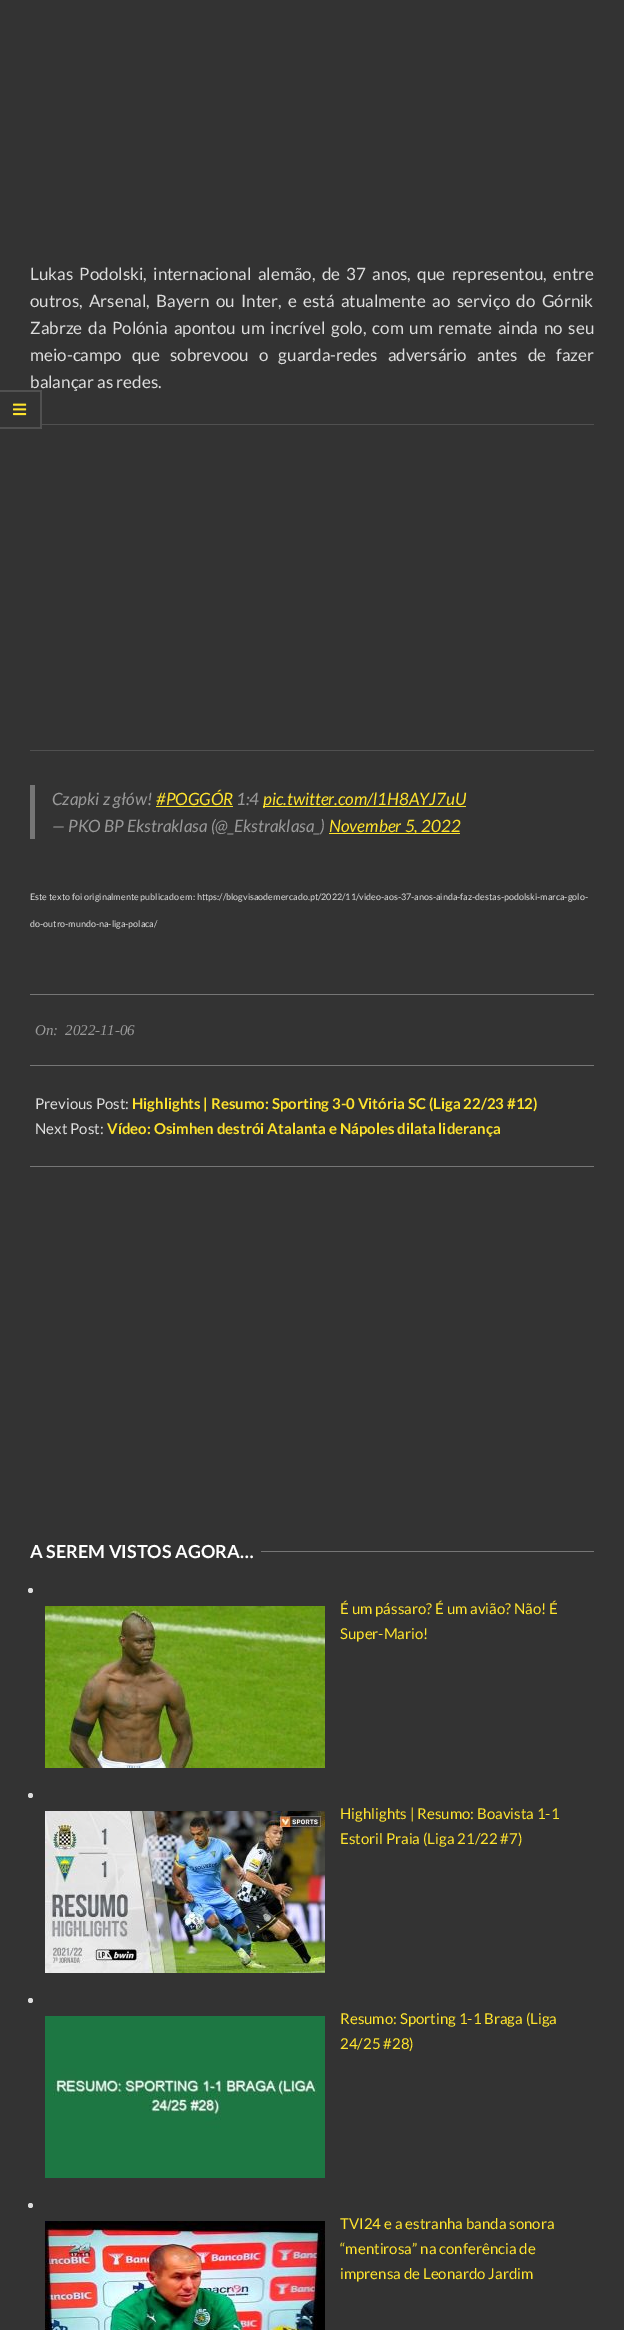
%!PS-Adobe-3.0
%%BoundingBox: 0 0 624 2330
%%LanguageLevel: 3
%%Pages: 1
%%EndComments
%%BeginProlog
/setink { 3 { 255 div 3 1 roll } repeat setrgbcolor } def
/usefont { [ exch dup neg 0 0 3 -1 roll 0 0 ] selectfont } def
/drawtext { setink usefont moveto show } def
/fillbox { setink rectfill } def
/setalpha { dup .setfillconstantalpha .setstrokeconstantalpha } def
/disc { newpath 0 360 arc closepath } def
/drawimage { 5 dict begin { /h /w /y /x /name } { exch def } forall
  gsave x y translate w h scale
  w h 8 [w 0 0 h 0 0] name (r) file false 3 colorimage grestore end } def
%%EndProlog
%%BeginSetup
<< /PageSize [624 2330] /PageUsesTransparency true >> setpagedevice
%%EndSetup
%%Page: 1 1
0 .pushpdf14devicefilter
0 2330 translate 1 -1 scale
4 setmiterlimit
0 0 624 2330 51 51 51 fillbox
(balançar as redes.) 30 388 /Lato-Regular 17 221 221 221 drawtext
80 80 80 setink
0 390 moveto 42 390 lineto 40 392 lineto 0 392 lineto closepath fill
0.14 setalpha
255 255 255 setink
42 390 moveto 42 429 lineto 40 427 lineto 40 392 lineto closepath fill
42 429 moveto 0 429 lineto 0 427 lineto 40 427 lineto closepath fill
1 setalpha
(assets/img1.rgb) 13 403 14 13 drawimage
30 994 564 1 118 118 118 fillbox
221 221 221 setink
30 280 moveto 3.1 0 32 (Lukas Podolski, internacional alemão, de 37 anos, que representou, entre) widthshow
30 307 moveto 3.1 0 32 (outros, Arsenal, Bayern ou Inter, e está atualmente ao serviço do Górnik) widthshow
30 334 moveto 2.4 0 32 (Zabrze da Polónia apontou um incrível golo, com um remate ainda no seu) widthshow
30 361 moveto 6.75 0 32 (meio-campo que sobrevoou o guarda-redes adversário antes de fazer) widthshow
42 424 552 1 80 80 80 fillbox
30 750 564 1 80 80 80 fillbox
30 785 5 54 118 118 118 fillbox
(Czapki z głów!) 52 805 /Lato-Italic 17 153 153 153 drawtext
(#POGGÓR) 156 805 /Lato-Italic 17 255 228 45 drawtext
156 806 77 1 255 228 45 fillbox
(1:4) 236 805 /Lato-Italic 17 153 153 153 drawtext
263 806 203 1 255 228 45 fillbox
(pic.twitter.com/l1H8AYJ7uU) 263 805 /Lato-Italic 17 255 228 45 drawtext
(— PKO BP Ekstraklasa \(@_Ekstraklasa_\)) 52 832 /Lato-Italic 17 153 153 153 drawtext
329 833 131 1 255 228 45 fillbox
(November 5, 2022) 329 832 /Lato-Italic 17 255 228 45 drawtext
(Este texto foi originalmente publicado em: https://blogvisaodemercado.pt/2022/11/video-aos-37-anos-ainda-faz-destas-podolski-marca-golo-) 30 900 /Lato-Regular 9 221 221 221 drawtext
(do-outro-mundo-na-liga-polaca/) 30 927 /Lato-Regular 9 221 221 221 drawtext
30 1065 564 1 118 118 118 fillbox
(On:) 35 1035 /LiberationSerif-Italic 15 153 153 153 drawtext
(2022-11-06) 65 1035 /LiberationSerif-Italic 15 153 153 153 drawtext
30 1166 564 1 118 118 118 fillbox
(Previous Post:) 35 1109 /Lato-Regular 15 221 221 221 drawtext
(Highlights | Resumo: Sporting 3-0 Vitória SC \(Liga 22/23 #12\)) 132 1109 /Lato-Bold 15 255 228 45 drawtext
(Next Post:) 35 1134 /Lato-Regular 15 221 221 221 drawtext
(Vídeo: Osimhen destrói Atalanta e Nápoles dilata liderança) 107 1134 /Lato-Bold 15 255 228 45 drawtext
(A SEREM VISTOS AGORA…) 30 1558 /Lato-Bold 18 255 255 255 drawtext
261 1551 333 1 118 118 118 fillbox
221 221 221 setink
30.5 1590.5 2.5 disc fill
(assets/img2.rgb) 45 1606 280 162 drawimage
(É um pássaro? É um avião? Não! É) 340 1614 /Lato-Regular 15 255 228 45 drawtext
(Super-Mario!) 340 1639 /Lato-Regular 15 255 228 45 drawtext
221 221 221 setink
30.5 1795.5 2.5 disc fill
(assets/img3.rgb) 45 1811 280 162 drawimage
(Highlights | Resumo: Boavista 1-1) 340 1819 /Lato-Regular 15 255 228 45 drawtext
(Estoril Praia \(Liga 21/22 #7\)) 340 1844 /Lato-Regular 15 255 228 45 drawtext
221 221 221 setink
30.5 2000.5 2.5 disc fill
(assets/img4.rgb) 45 2016 280 162 drawimage
(Resumo: Sporting 1-1 Braga \(Liga) 340 2024 /Lato-Regular 15 255 228 45 drawtext
(24/25 #28\)) 340 2049 /Lato-Regular 15 255 228 45 drawtext
221 221 221 setink
30.5 2205.5 2.5 disc fill
(assets/img5.rgb) 45 2221 280 109 drawimage
(TVI24 e a estranha banda sonora) 340 2229 /Lato-Regular 15 255 228 45 drawtext
(“mentirosa” na conferência de) 340 2254 /Lato-Regular 15 255 228 45 drawtext
(imprensa de Leonardo Jardim) 340 2279 /Lato-Regular 15 255 228 45 drawtext
.poppdf14devicefilter showpage
%%EOF
